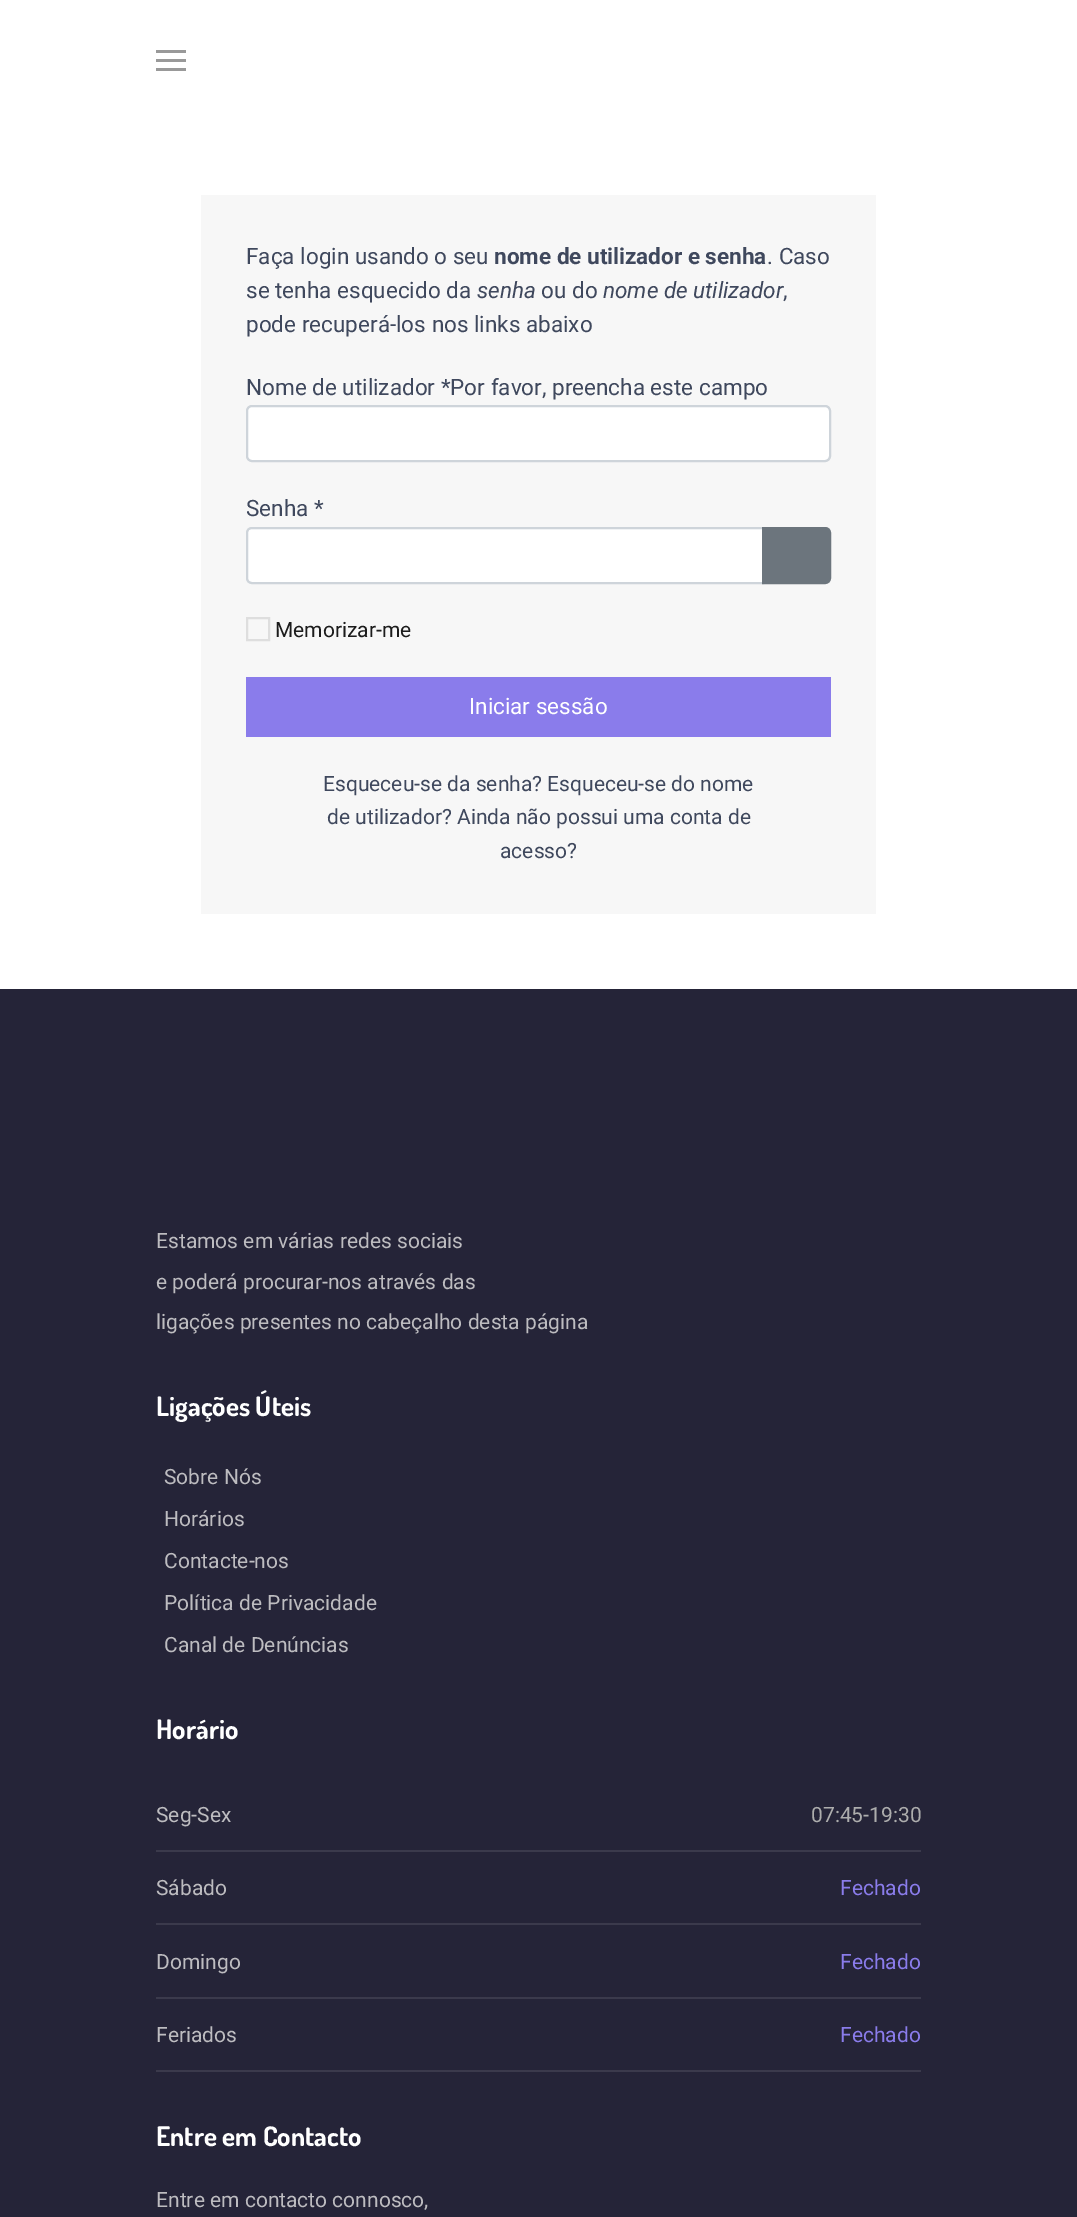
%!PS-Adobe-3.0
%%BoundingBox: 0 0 1077 2217
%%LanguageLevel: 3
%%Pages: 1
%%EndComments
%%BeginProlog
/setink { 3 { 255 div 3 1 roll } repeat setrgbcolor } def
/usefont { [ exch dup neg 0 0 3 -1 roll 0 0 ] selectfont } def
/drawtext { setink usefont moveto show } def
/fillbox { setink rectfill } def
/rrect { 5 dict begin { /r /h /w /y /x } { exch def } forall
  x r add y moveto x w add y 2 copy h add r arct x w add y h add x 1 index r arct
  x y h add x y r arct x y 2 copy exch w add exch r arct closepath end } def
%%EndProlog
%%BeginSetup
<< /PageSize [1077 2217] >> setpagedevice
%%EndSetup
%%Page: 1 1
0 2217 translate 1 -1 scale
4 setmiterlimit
0 0 1077 2217 255 255 255 fillbox
156 50 30 3 153 153 153 fillbox
156 59 30 3 153 153 153 fillbox
156 68 30 3 153 153 153 fillbox
201 195 675 719 247 247 247 fillbox
(Faça login usando o seu) 246 264 /Roboto-Regular 22.5 63 72 93 drawtext
(nome de utilizador e senha) 494 264 /Roboto-Bold 22.5 63 72 93 drawtext
(. Caso) 767 264 /Roboto-Regular 22.5 63 72 93 drawtext
(se tenha esquecido da) 246 298 /Roboto-Regular 22.5 63 72 93 drawtext
(senha) 477 298 /Roboto-Italic 22.5 63 72 93 drawtext
(ou do) 541 298 /Roboto-Regular 22.5 63 72 93 drawtext
(nome de utilizador) 603 298 /Roboto-Italic 22.5 63 72 93 drawtext
(,) 783 298 /Roboto-Regular 22.5 63 72 93 drawtext
(pode recuperá-los nos links abaixo) 246 332 /Roboto-Regular 22.5 63 72 93 drawtext
(Nome de utilizador *Por favor, preencha este campo) 246 395 /Roboto-Regular 22.5 63 72 93 drawtext
255 255 255 setink
247 406 583 55 5 rrect gsave fill grestore
206 212 218 setink
2 setlinewidth
stroke
(Senha *) 246 516 /Roboto-Regular 22.5 63 72 93 drawtext
255 255 255 setink
252 528 moveto 763 528 lineto 763 583 lineto 252 583 lineto 249 583 247 581 247 578 curveto 247 533 lineto 247 530 249 528 252 528 curveto closepath gsave fill grestore
206 212 218 setink
stroke
108 117 125 setink
763 528 moveto 825 528 lineto 828 528 830 530 830 533 curveto 830 578 lineto 830 581 828 583 825 583 curveto 763 583 lineto closepath gsave fill grestore
stroke
222 222 222 setink
247 618 22 22 rectstroke
(Memorizar-me) 275 637 /Roboto-Regular 21 28 28 28 drawtext
246 677 585 60 138 124 235 fillbox
(Iniciar sessão) 469 714 /Roboto-Regular 22.5 255 255 255 drawtext
(Esqueceu-se da senha? Esqueceu-se do nome) 323 791 /Roboto-Regular 21 63 72 93 drawtext
(de utilizador? Ainda não possui uma conta de) 327 824 /Roboto-Regular 21 63 72 93 drawtext
(acesso?) 500 858 /Roboto-Regular 21 63 72 93 drawtext
0 989 1077 1228 37 36 56 fillbox
(Estamos em várias redes sociais) 156 1248 /Roboto-Regular 21 189 188 192 drawtext
(e poderá procurar-nos através das) 156 1289 /Roboto-Regular 21 189 188 192 drawtext
(ligações presentes no cabeçalho desta página) 156 1329 /Roboto-Regular 21 189 188 192 drawtext
(Ligações Úteis) 156 1416 /Dosis-Bold 27 255 255 255 drawtext
(Sobre Nós) 164 1484 /Roboto-Regular 21 189 188 192 drawtext
(Horários) 164 1526 /Roboto-Regular 21 189 188 192 drawtext
(Contacte-nos) 164 1568 /Roboto-Regular 21 189 188 192 drawtext
(Política de Privacidade) 164 1610 /Roboto-Regular 21 189 188 192 drawtext
(Canal de Denúncias) 164 1652 /Roboto-Regular 21 189 188 192 drawtext
(Horário) 156 1739 /Dosis-Bold 27 255 255 255 drawtext
156 1850 765 2 59 58 76 fillbox
(Seg-Sex) 156 1822 /Roboto-Regular 21 189 188 192 drawtext
(07:45-19:30) 811 1822 /Roboto-Regular 21 173 173 173 drawtext
156 1923 765 2 59 58 76 fillbox
(Sábado) 156 1895 /Roboto-Regular 21 189 188 192 drawtext
(Fechado) 840 1895 /Roboto-Regular 21 138 124 235 drawtext
156 1997 765 2 59 58 76 fillbox
(Domingo) 156 1969 /Roboto-Regular 21 189 188 192 drawtext
(Fechado) 840 1969 /Roboto-Regular 21 138 124 235 drawtext
156 2070 765 2 59 58 76 fillbox
(Feriados) 156 2042 /Roboto-Regular 21 189 188 192 drawtext
(Fechado) 840 2042 /Roboto-Regular 21 138 124 235 drawtext
(Entre em Contacto) 156 2146 /Dosis-Bold 27 255 255 255 drawtext
(Entre em contacto connosco,) 156 2207 /Roboto-Regular 21 189 188 192 drawtext
showpage
%%EOF
